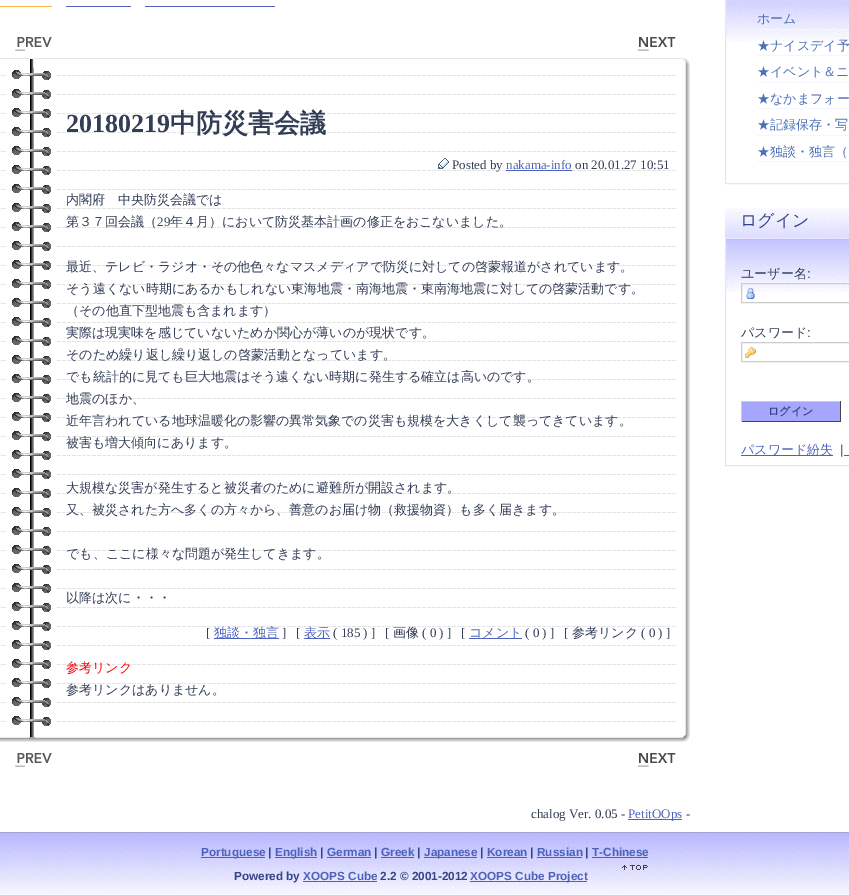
%!PS-Adobe-3.0
%%BoundingBox: 0 0 849 895
%%LanguageLevel: 3
%%Pages: 1
%%EndComments
%%BeginProlog
/setink { 3 { 255 div 3 1 roll } repeat setrgbcolor } def
/usefont { [ exch dup neg 0 0 3 -1 roll 0 0 ] selectfont } def
/drawtext { setink usefont moveto show } def
/fillbox { setink rectfill } def
/drawimage { 5 dict begin { /h /w /y /x /name } { exch def } forall
  gsave x y translate w h scale
  w h 8 [w 0 0 h 0 0] name (r) file false 3 colorimage grestore end } def
%%EndProlog
%%BeginSetup
<< /PageSize [849 895] >> setpagedevice
%%EndSetup
%%Page: 1 1
0 895 translate 1 -1 scale
4 setmiterlimit
0 0 849 895 255 255 255 fillbox
0 6 52 1 249 183 67 fillbox
66 6 65 1 77 99 187 fillbox
145 6 130 1 77 99 187 fillbox
(assets/img1.rgb) 15 37 37 14 drawimage
(assets/img2.rgb) 637 37 39 14 drawimage
(assets/img3.rgb) 0 58 56 10 drawimage
(assets/img4.rgb) 56 58 634 10 drawimage
(assets/img5.rgb) 0 68 51 659 drawimage
(assets/img6.rgb) 57 68 633 659 drawimage
(20180219) 66 132 /LiberationSerif-Bold 26 50 61 86 drawtext
(中防災害会議) 170 132 /WenQuanYiZenHei-Bold 26 50 61 86 drawtext
(assets/img7.rgb) 438 158 11 11 drawimage
(Posted by) 452 169 /LiberationSerif-Regular 13 50 61 86 drawtext
(nakama-info) 506 169 /LiberationSerif-Regular 13 77 99 187 drawtext
506 170 66 1 77 99 187 fillbox
(on 20.01.27 10:51) 575 169 /LiberationSerif-Regular 13 50 61 86 drawtext
(内閣府　中央防災会議では) 66 204 /WenQuanYiZenHei-Medium 13 50 61 86 drawtext
(第３７回会議（) 66 226 /WenQuanYiZenHei-Medium 13 50 61 86 drawtext
(29) 157 226 /LiberationSerif-Regular 13 50 61 86 drawtext
(年４月）において防災基本計画の修正をおこないました。) 170 226 /WenQuanYiZenHei-Medium 13 50 61 86 drawtext
(最近、テレビ・ラジオ・その他色々なマスメディアで防災に対しての啓蒙報道がされています。) 66 271 /WenQuanYiZenHei-Medium 13 50 61 86 drawtext
(そう遠くない時期にあるかもしれない東海地震・南海地震・東南海地震に対しての啓蒙活動です。) 66 293 /WenQuanYiZenHei-Medium 13 50 61 86 drawtext
(（その他直下型地震も含まれます）) 66 315 /WenQuanYiZenHei-Medium 13 50 61 86 drawtext
(実際は現実味を感じていないためか関心が薄いのが現状です。) 66 337 /WenQuanYiZenHei-Medium 13 50 61 86 drawtext
(そのため繰り返し繰り返しの啓蒙活動となっています。) 66 359 /WenQuanYiZenHei-Medium 13 50 61 86 drawtext
(でも統計的に見ても巨大地震はそう遠くない時期に発生する確立は高いのです。) 66 381 /WenQuanYiZenHei-Medium 13 50 61 86 drawtext
(地震のほか、) 66 403 /WenQuanYiZenHei-Medium 13 50 61 86 drawtext
(近年言われている地球温暖化の影響の異常気象での災害も規模を大きくして襲ってきています。) 66 425 /WenQuanYiZenHei-Medium 13 50 61 86 drawtext
(被害も増大傾向にあります。) 66 447 /WenQuanYiZenHei-Medium 13 50 61 86 drawtext
(大規模な災害が発生すると被災者のために避難所が開設されます。) 66 492 /WenQuanYiZenHei-Medium 13 50 61 86 drawtext
(又、被災された方へ多くの方々から、善意のお届け物（救援物資）も多く届きます。) 66 514 /WenQuanYiZenHei-Medium 13 50 61 86 drawtext
(でも、ここに様々な問題が発生してきます。) 66 558 /WenQuanYiZenHei-Medium 13 50 61 86 drawtext
(以降は次に・・・) 66 602 /WenQuanYiZenHei-Medium 13 50 61 86 drawtext
([) 206 637 /LiberationSerif-Regular 13 50 61 86 drawtext
214 638 65 1 77 99 187 fillbox
(独談・独言) 214 637 /WenQuanYiZenHei-Medium 13 77 99 187 drawtext
(]) 282 637 /LiberationSerif-Regular 13 50 61 86 drawtext
([) 296 637 /LiberationSerif-Regular 13 50 61 86 drawtext
304 638 26 1 77 99 187 fillbox
(表示) 304 637 /WenQuanYiZenHei-Medium 13 77 99 187 drawtext
(\( 185 \) ]) 333 637 /LiberationSerif-Regular 13 50 61 86 drawtext
([) 385 637 /LiberationSerif-Regular 13 50 61 86 drawtext
(画像) 393 637 /WenQuanYiZenHei-Medium 13 50 61 86 drawtext
(\( 0 \) ]) 422 637 /LiberationSerif-Regular 13 50 61 86 drawtext
([) 461 637 /LiberationSerif-Regular 13 50 61 86 drawtext
469 638 53 1 77 99 187 fillbox
(コメント) 469 637 /WenQuanYiZenHei-Medium 13 77 99 187 drawtext
(\( 0 \) ]) 525 637 /LiberationSerif-Regular 13 50 61 86 drawtext
([) 564 637 /LiberationSerif-Regular 13 50 61 86 drawtext
(参考リンク) 572 637 /WenQuanYiZenHei-Medium 13 50 61 86 drawtext
(\( 0 \) ]) 641 637 /LiberationSerif-Regular 13 50 61 86 drawtext
(参考リンク) 66 672 /WenQuanYiZenHei-Medium 13 255 0 0 drawtext
(参考リンクはありません。) 66 694 /WenQuanYiZenHei-Medium 13 50 61 86 drawtext
(assets/img8.rgb) 0 727 56 15 drawimage
(assets/img9.rgb) 56 727 634 15 drawimage
(assets/img1.rgb) 15 753 37 14 drawimage
(assets/img2.rgb) 637 753 39 14 drawimage
(chalog Ver. 0.05 -) 531 818 /LiberationSerif-Regular 13 50 61 86 drawtext
628 819 54 1 77 99 187 fillbox
(PetitOOps) 628 818 /LiberationSerif-Regular 13 77 99 187 drawtext
(-) 686 818 /LiberationSerif-Regular 13 50 61 86 drawtext
(assets/img10.rgb) 726 0 123 41 drawimage
228 228 255 setink
725.5 -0.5 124 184 rectstroke
757 29 92 1 245 245 255 fillbox
(ホーム) 757 23 /WenQuanYiZenHei-Medium 13 77 113 185 drawtext
757 55 92 1 245 245 255 fillbox
(★ナイスデイ予) 757 50 /WenQuanYiZenHei-Medium 13 77 113 185 drawtext
757 82 92 1 245 245 255 fillbox
(★イベント＆ニ) 757 76 /WenQuanYiZenHei-Medium 13 77 113 185 drawtext
757 108 92 1 245 245 255 fillbox
(★なかまフォー) 757 103 /WenQuanYiZenHei-Medium 13 77 113 185 drawtext
757 135 92 1 245 245 255 fillbox
(★記録保存・写) 757 129 /WenQuanYiZenHei-Medium 13 77 113 185 drawtext
757 161 92 1 245 245 255 fillbox
(★独談・独言（) 757 156 /WenQuanYiZenHei-Medium 13 77 113 185 drawtext
(assets/img11.rgb) 725 208 124 29 drawimage
725 237 124 1 226 226 252 fillbox
(ログイン) 740 226 /WenQuanYiZenHei-Medium 17 52 69 135 drawtext
(assets/img12.rgb) 726 239 123 53 drawimage
228 228 255 setink
725.5 238.5 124 227 rectstroke
(ユーザー名) 741 278 /WenQuanYiZenHei-Medium 13 50 61 86 drawtext
(:) 807 278 /LiberationSans-Regular 13 50 61 86 drawtext
(assets/img13.rgb) 746 288 9 11 drawimage
204 204 204 setink
741.5 283.5 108 19 rectstroke
(パスワード) 741 337 /WenQuanYiZenHei-Medium 13 50 61 86 drawtext
(:) 807 337 /LiberationSans-Regular 13 50 61 86 drawtext
(assets/img14.rgb) 745 347 11 11 drawimage
204 204 204 setink
741.5 342.5 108 19 rectstroke
742 402 98 19 166 166 255 fillbox
741 401 100 1 204 204 204 fillbox
840 401 1 21 68 68 68 fillbox
741 421 100 1 68 68 68 fillbox
741 401 1 21 204 204 204 fillbox
(ログイン) 768 415 /WenQuanYiZenHei-Bold 11 52 69 135 drawtext
741 455 92 1 77 99 187 fillbox
(パスワード紛失) 741 454 /WenQuanYiZenHei-Medium 13 77 99 187 drawtext
(|) 840 454 /LiberationSans-Regular 13 50 61 86 drawtext
844 455 5 1 77 99 187 fillbox
(assets/img15.rgb) 0 832 849 63 drawimage
201 857 64 1 77 99 187 fillbox
(Portuguese) 201 856 /LiberationSans-Bold 11.75 77 99 187 drawtext
(|) 268 856 /LiberationSans-Bold 11.75 52 69 135 drawtext
275 857 42 1 77 99 187 fillbox
(English) 275 856 /LiberationSans-Bold 11.75 77 99 187 drawtext
(|) 320 856 /LiberationSans-Bold 11.75 52 69 135 drawtext
(German) 327 856 /LiberationSans-Bold 11.75 77 99 187 drawtext
327 857 44 1 77 99 187 fillbox
(|) 374 856 /LiberationSans-Bold 11.75 52 69 135 drawtext
(Greek) 381 856 /LiberationSans-Bold 11.75 77 99 187 drawtext
381 857 33 1 77 99 187 fillbox
(|) 417 856 /LiberationSans-Bold 11.75 52 69 135 drawtext
424 857 53 1 77 99 187 fillbox
(Japanese) 424 856 /LiberationSans-Bold 11.75 77 99 187 drawtext
(|) 480 856 /LiberationSans-Bold 11.75 52 69 135 drawtext
(Korean) 487 856 /LiberationSans-Bold 11.75 77 99 187 drawtext
487 857 40 1 77 99 187 fillbox
(|) 530 856 /LiberationSans-Bold 11.75 52 69 135 drawtext
(Russian) 537 856 /LiberationSans-Bold 11.75 77 99 187 drawtext
537 857 45 1 77 99 187 fillbox
(|) 585 856 /LiberationSans-Bold 11.75 52 69 135 drawtext
(T-Chinese) 592 856 /LiberationSans-Bold 11.75 77 99 187 drawtext
592 857 56 1 77 99 187 fillbox
(assets/img16.rgb) 622 865 26 5 drawimage
(Powered by) 234 880 /LiberationSans-Bold 11.75 52 69 135 drawtext
(XOOPS Cube) 303 880 /LiberationSans-Bold 11.75 77 99 187 drawtext
303 881 74 1 77 99 187 fillbox
(2.2 © 2001-2012) 380 880 /LiberationSans-Bold 11.75 52 69 135 drawtext
470 881 117 1 77 99 187 fillbox
(XOOPS Cube Project) 470 880 /LiberationSans-Bold 11.75 77 99 187 drawtext
showpage
%%EOF
